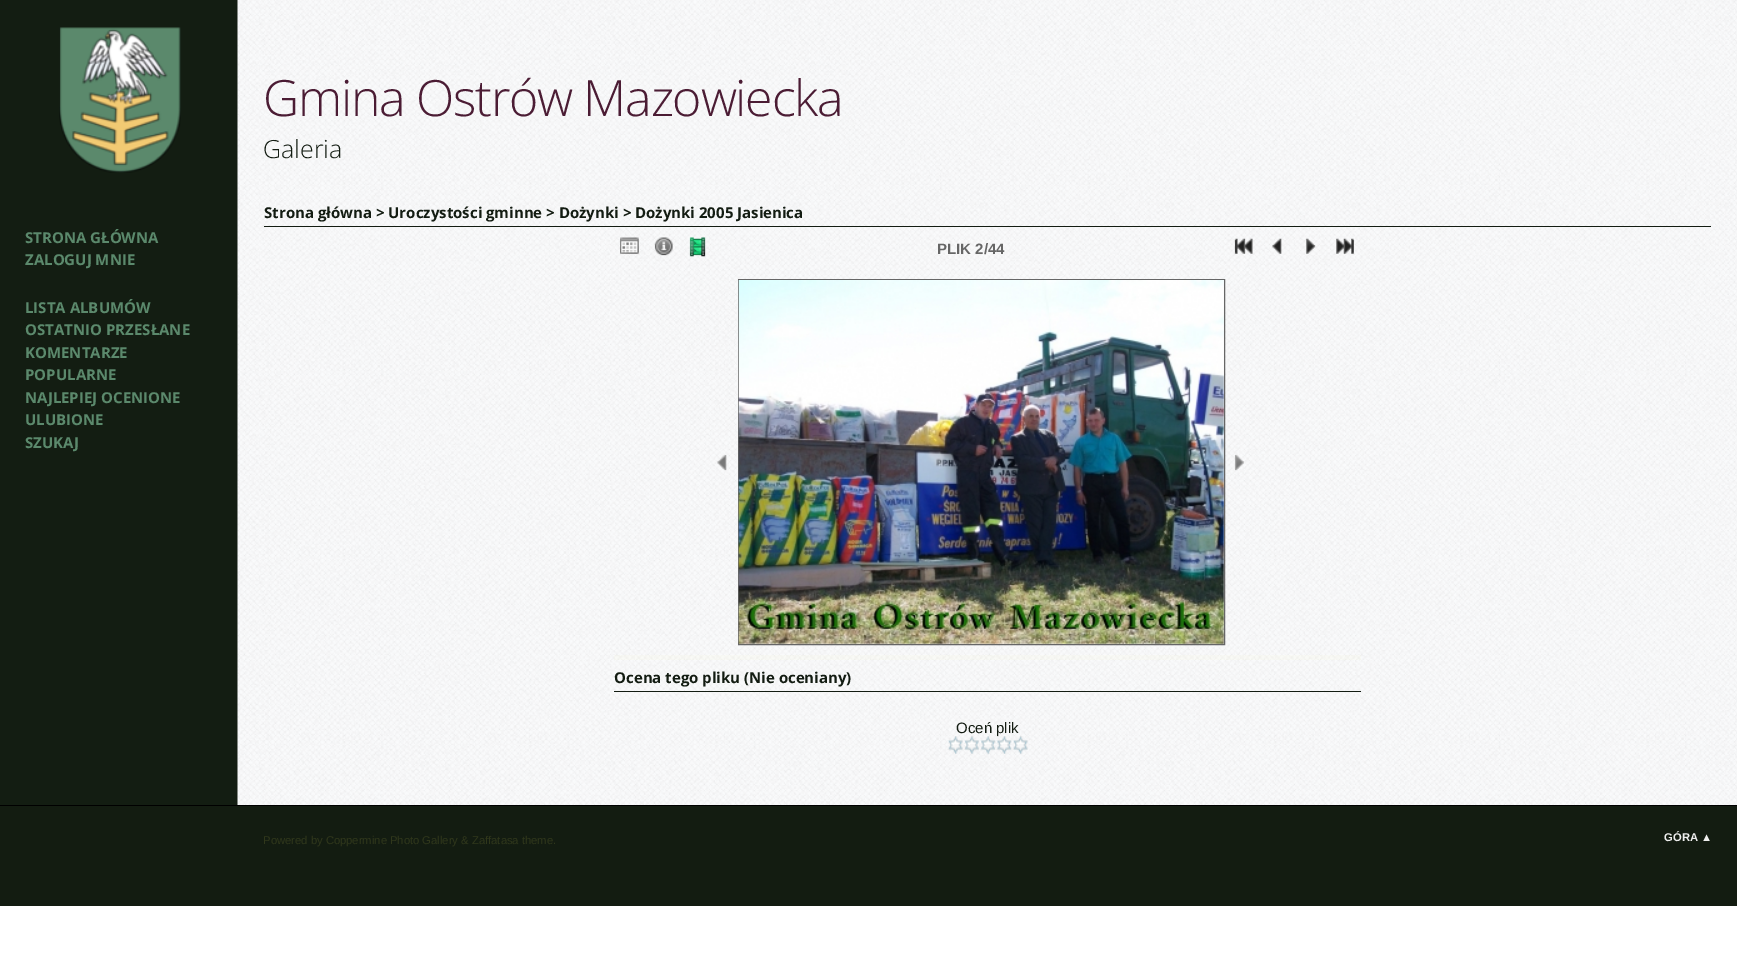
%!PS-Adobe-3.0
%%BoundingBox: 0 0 1737 960
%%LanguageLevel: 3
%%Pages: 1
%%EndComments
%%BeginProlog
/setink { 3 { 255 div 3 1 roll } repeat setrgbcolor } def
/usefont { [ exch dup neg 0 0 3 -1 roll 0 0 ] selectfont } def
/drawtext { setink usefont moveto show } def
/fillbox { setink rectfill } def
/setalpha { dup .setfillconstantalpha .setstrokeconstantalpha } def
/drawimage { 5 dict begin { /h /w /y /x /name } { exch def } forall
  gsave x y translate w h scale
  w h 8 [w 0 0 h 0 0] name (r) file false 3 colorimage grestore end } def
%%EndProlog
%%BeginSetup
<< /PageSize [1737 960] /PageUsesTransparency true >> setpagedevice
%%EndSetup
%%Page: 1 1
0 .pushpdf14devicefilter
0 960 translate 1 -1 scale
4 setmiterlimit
0 0 1737 960 255 255 255 fillbox
0 0 238 805 19 29 18 fillbox
(assets/img1.rgb) 59 27 122 146 drawimage
(STRONA GŁÓWNA) 25 243 /OpenSans-Bold 15 91 137 108 drawtext
(ZALOGUJ MNIE) 25 265 /OpenSans-Bold 15 91 137 108 drawtext
(LISTA ALBUMÓW) 25 313 /OpenSans-Bold 15 91 137 108 drawtext
(OSTATNIO PRZESŁANE) 25 335 /OpenSans-Bold 15 91 137 108 drawtext
(KOMENTARZE) 25 358 /OpenSans-Bold 15 91 137 108 drawtext
(POPULARNE) 25 380 /OpenSans-Bold 15 91 137 108 drawtext
(NAJLEPIEJ OCENIONE) 25 403 /OpenSans-Bold 15 91 137 108 drawtext
(ULUBIONE) 25 425 /OpenSans-Bold 15 91 137 108 drawtext
(SZUKAJ) 25 448 /OpenSans-Bold 15 91 137 108 drawtext
(assets/img2.rgb) 237 0 1500 805 drawimage
/OpenSans-Light 50 usefont
75 28 52 setink
263 116 moveto -1.25 0 (Gmina Ostrów Mazowiecka) ashow
(Galeria) 263 158 /OpenSans-Light 25 19 28 18 drawtext
264 226 1447 1 19 28 18 fillbox
(Strona główna > Uroczystości gminne > Dożynki > Dożynki 2005 Jasienica) 264 218 /OpenSans-Bold 15 19 28 18 drawtext
(assets/img3.rgb) 620 237 19 17 drawimage
(assets/img4.rgb) 654 237 19 19 drawimage
(assets/img5.rgb) 689 237 17 20 drawimage
(PLIK 2/44) 937 254 /LiberationSans-Bold 15 102 102 102 drawtext
(assets/img6.rgb) 1234 238 19 16 drawimage
(assets/img7.rgb) 1272 238 10 16 drawimage
(assets/img8.rgb) 1306 238 10 16 drawimage
(assets/img9.rgb) 1336 238 18 16 drawimage
(assets/img10.rgb) 717 454 10 17 drawimage
738.5 279.5 486 365 rectstroke
(assets/img11.rgb) 738 280 486 364 drawimage
(assets/img12.rgb) 1234 454 10 17 drawimage
0.04 setalpha
614 655 747 5 240 245 119 fillbox
1 setalpha
614 691 747 1 19 28 18 fillbox
(Ocena tego pliku \(Nie oceniany\)) 614 683 /OpenSans-Bold 15 19 28 18 drawtext
(Oceń plik) 956 733 /LiberationSans-Regular 15 19 28 18 drawtext
(assets/img13.rgb) 947 736 16 18 drawimage
(assets/img14.rgb) 964 736 16 18 drawimage
(assets/img15.rgb) 980 736 16 18 drawimage
(assets/img16.rgb) 996 736 16 18 drawimage
(assets/img17.rgb) 1012 736 16 18 drawimage
gsave 0 806 moveto 1737 806 lineto 1737 906 lineto 0 906 lineto closepath clip newpath
<< /ShadingType 2 /ColorSpace /DeviceRGB /Coords [869 806 869 906] /Extend [true true] /Function << /FunctionType 2 /Domain [0 1] /C0 [0.078 0.114 0.071] /C1 [0.075 0.11 0.067] /N 1 >> >> shfill grestore
0 805 1737 1 0 0 0 fillbox
(Powered by Coppermine Photo Gallery & Zaffatasa theme.) 263 844 /LiberationSans-Regular 11.25 48 55 27 drawtext
(GÓRA ▲) 1664 841 /LiberationSans-Bold 11.25 238 238 238 drawtext
.poppdf14devicefilter showpage
%%EOF
